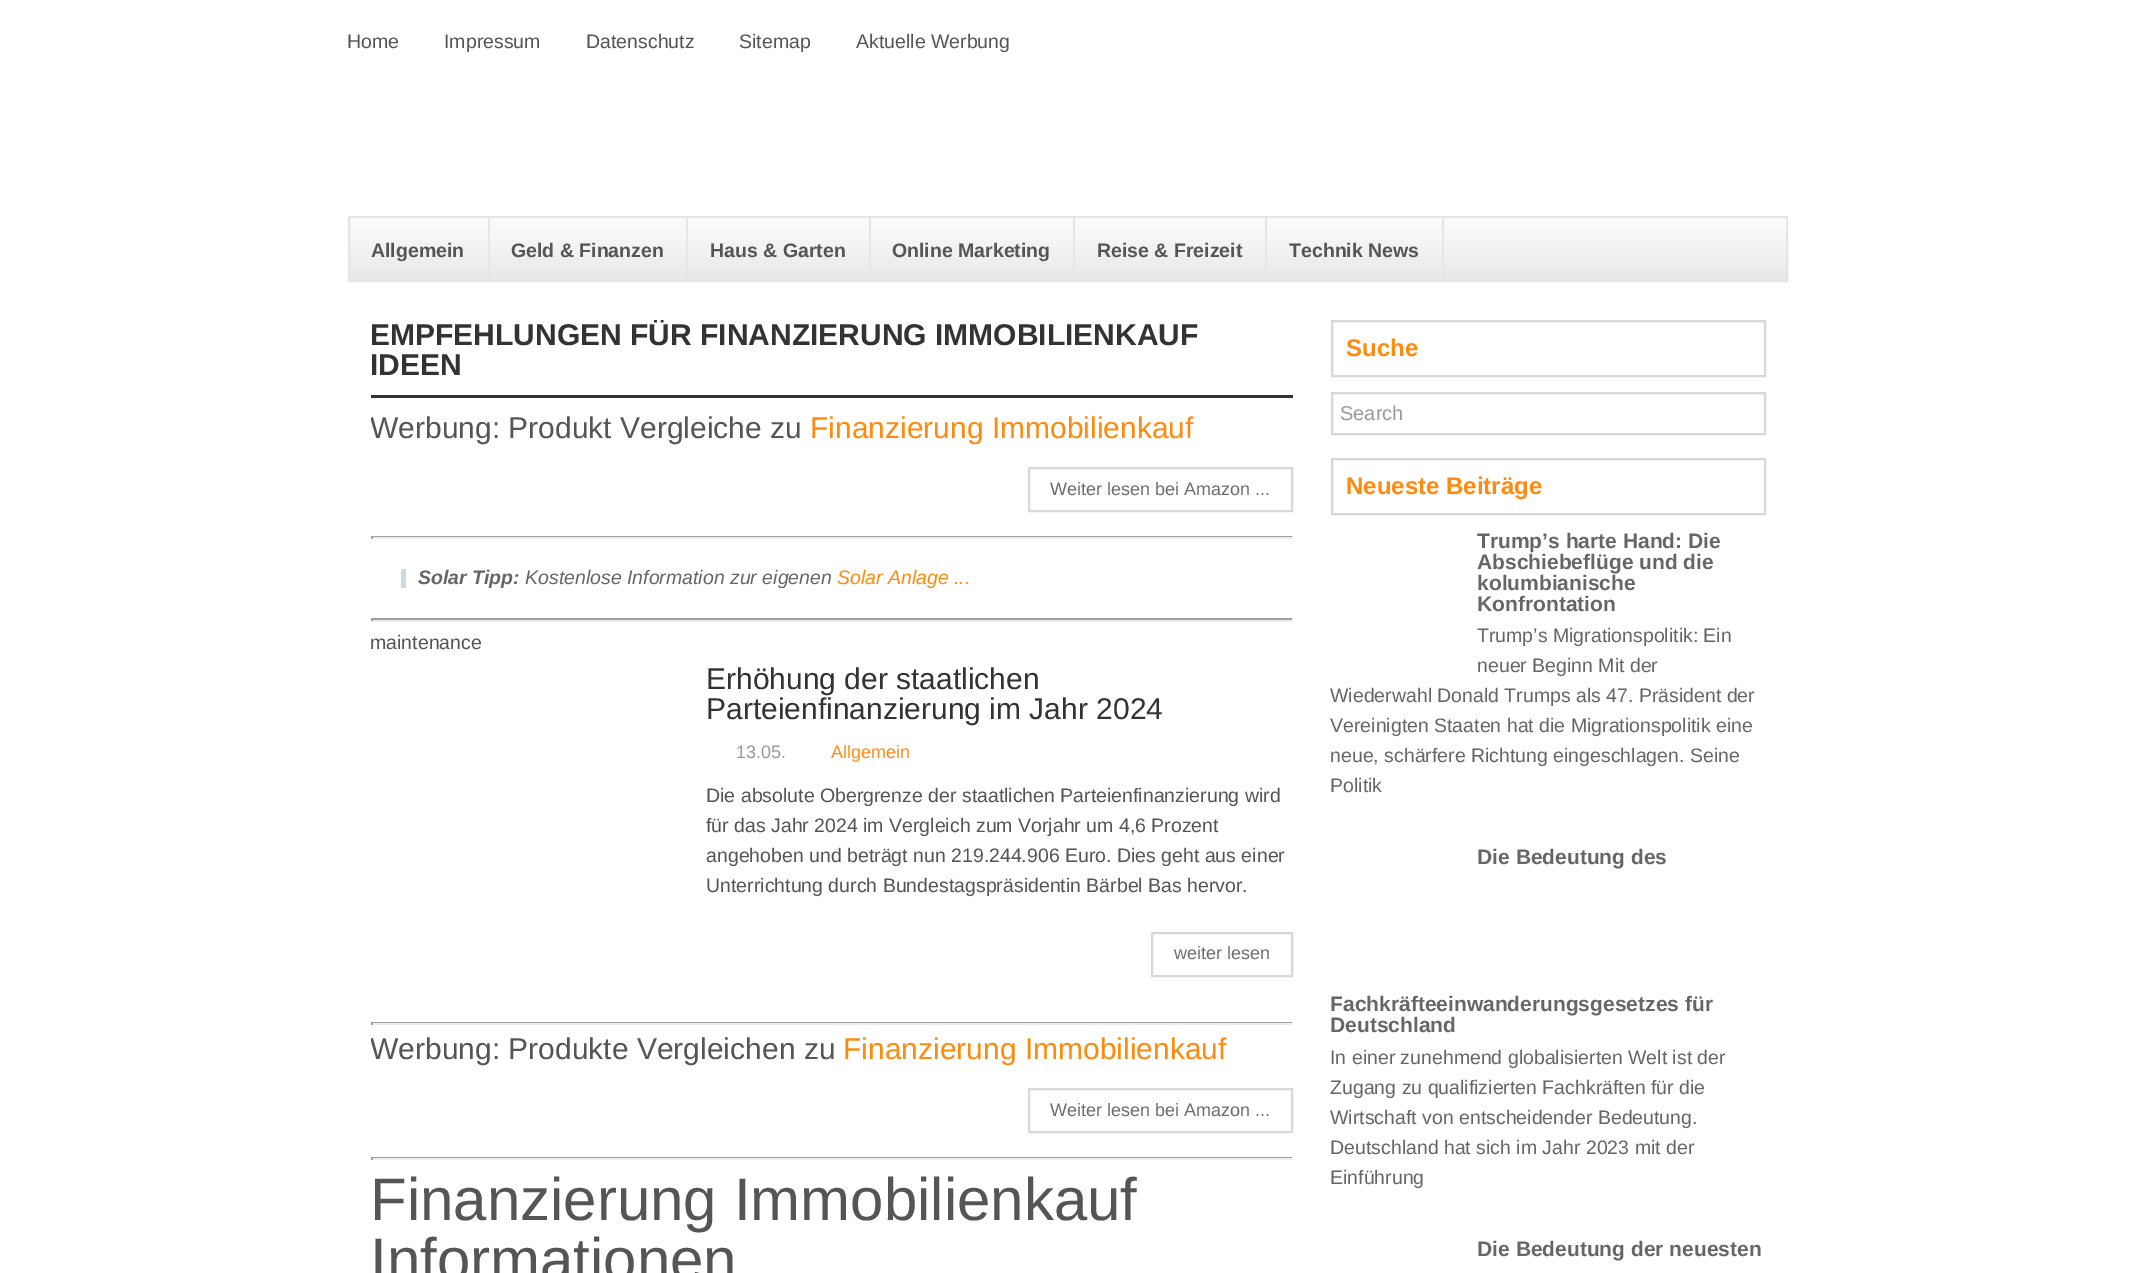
%!PS-Adobe-3.0
%%BoundingBox: 0 0 2134 1273
%%LanguageLevel: 3
%%Pages: 1
%%EndComments
%%BeginProlog
/setink { 3 { 255 div 3 1 roll } repeat setrgbcolor } def
/usefont { [ exch dup neg 0 0 3 -1 roll 0 0 ] selectfont } def
/drawtext { setink usefont moveto show } def
/fillbox { setink rectfill } def
%%EndProlog
%%BeginSetup
<< /PageSize [2134 1273] >> setpagedevice
%%EndSetup
%%Page: 1 1
0 1273 translate 1 -1 scale
4 setmiterlimit
0 0 2134 1273 255 255 255 fillbox
(Home) 347 48 /LiberationSans-Regular 19.5 85 85 85 drawtext
(Impressum) 444 48 /LiberationSans-Regular 19.5 85 85 85 drawtext
(Datenschutz) 586 48 /LiberationSans-Regular 19.5 85 85 85 drawtext
(Sitemap) 739 48 /LiberationSans-Regular 19.5 85 85 85 drawtext
(Aktuelle Werbung) 856 48 /LiberationSans-Regular 19.5 85 85 85 drawtext
gsave 350 219 moveto 1786 219 lineto 1786 280 lineto 350 280 lineto closepath clip newpath
<< /ShadingType 2 /ColorSpace /DeviceRGB /Coords [1068 217 1068 281] /Extend [true true] /Function << /FunctionType 2 /Domain [0 1] /C0 [0.992 0.992 0.992] /C1 [0.91 0.91 0.91] /N 1 >> >> shfill grestore
229 229 229 setink
2 setlinewidth
349 217 1438 64 rectstroke
488 218 2 63 230 230 230 fillbox
(Allgemein) 371 257 /LiberationSans-Bold 19.5 85 85 85 drawtext
686 218 2 63 230 230 230 fillbox
(Geld & Finanzen) 511 257 /LiberationSans-Bold 19.5 85 85 85 drawtext
869 218 2 63 230 230 230 fillbox
(Haus & Garten) 710 257 /LiberationSans-Bold 19.5 85 85 85 drawtext
1073 218 2 63 230 230 230 fillbox
(Online Marketing) 892 257 /LiberationSans-Bold 19.5 85 85 85 drawtext
1265 218 2 63 230 230 230 fillbox
(Reise & Freizeit) 1097 257 /LiberationSans-Bold 19.5 85 85 85 drawtext
1442 218 2 63 230 230 230 fillbox
(Technik News) 1289 257 /LiberationSans-Bold 19.5 85 85 85 drawtext
371 395 922 3 51 51 51 fillbox
gsave
371 320 922 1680 rectclip
(EMPFEHLUNGEN FÜR) 370 345 /LiberationSans-Bold 30 51 51 51 drawtext
grestore
(FINANZIERUNG IMMOBILIENKAUF) 700 345 /LiberationSans-Bold 30 51 51 51 drawtext
(IDEEN) 370 375 /LiberationSans-Bold 30 51 51 51 drawtext
gsave
371 320 922 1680 rectclip
(Werbung: Produkt Vergleiche zu) 370 438 /LiberationSans-Regular 30 85 85 85 drawtext
grestore
(Finanzierung Immobilienkauf) 810 438 /LiberationSans-Regular 30 255 138 13 drawtext
216 216 216 setink
1029 468 263 43 rectstroke
(Weiter lesen bei Amazon ...) 1050 495 /LiberationSans-Regular 18 109 109 109 drawtext
371 536 922 1 159 159 159 fillbox
1292 536 1 3 238 238 238 fillbox
371 537 922 2 238 238 238 fillbox
371 536 2 3 159 159 159 fillbox
401 569 5 19 202 218 231 fillbox
gsave
405 569 858 19 rectclip
(Solar Tipp:) 418 584 /LiberationSans-BoldItalic 19.5 102 102 102 drawtext
grestore
(Kostenlose Information zur eigenen) 525 584 /LiberationSans-Italic 19.5 102 102 102 drawtext
(Solar Anlage ...) 837 584 /LiberationSans-Italic 19.5 255 138 13 drawtext
371 618 922 2 159 159 159 fillbox
1292 618 1 3 238 238 238 fillbox
371 620 922 2 238 238 238 fillbox
371 618 2 3 159 159 159 fillbox
(maintenance) 370 649 /LiberationSans-Regular 19.5 85 85 85 drawtext
(Erhöhung der staatlichen) 706 689 /LiberationSans-Regular 30 51 51 51 drawtext
(Parteienfinanzierung im Jahr 2024) 706 719 /LiberationSans-Regular 30 51 51 51 drawtext
(13.05.) 736 758 /LiberationSans-Regular 18 153 153 153 drawtext
(Allgemein) 831 758 /LiberationSans-Regular 18 255 138 13 drawtext
(Die absolute Obergrenze der staatlichen Parteienfinanzierung wird) 706 802 /LiberationSans-Regular 19.5 85 85 85 drawtext
(für das Jahr 2024 im Vergleich zum Vorjahr um 4,6 Prozent) 706 832 /LiberationSans-Regular 19.5 85 85 85 drawtext
(angehoben und beträgt nun 219.244.906 Euro. Dies geht aus einer) 706 862 /LiberationSans-Regular 19.5 85 85 85 drawtext
(Unterrichtung durch Bundestagspräsidentin Bärbel Bas hervor.) 706 892 /LiberationSans-Regular 19.5 85 85 85 drawtext
216 216 216 setink
1152 933 140 43 rectstroke
(weiter lesen) 1174 959 /LiberationSans-Regular 18 109 109 109 drawtext
371 1022 922 1 159 159 159 fillbox
1292 1022 1 3 238 238 238 fillbox
371 1023 922 2 238 238 238 fillbox
371 1022 2 3 159 159 159 fillbox
gsave
371 320 922 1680 rectclip
(Werbung: Produkte Vergleichen zu) 370 1059 /LiberationSans-Regular 30 85 85 85 drawtext
grestore
(Finanzierung Immobilienkauf) 843 1059 /LiberationSans-Regular 30 255 138 13 drawtext
216 216 216 setink
1029 1089 263 43 rectstroke
(Weiter lesen bei Amazon ...) 1050 1116 /LiberationSans-Regular 18 109 109 109 drawtext
371 1157 922 1 159 159 159 fillbox
1292 1157 1 3 238 238 238 fillbox
371 1158 922 2 238 238 238 fillbox
371 1157 2 3 159 159 159 fillbox
(Finanzierung Immobilienkauf) 370 1220 /LiberationSans-Regular 60 85 85 85 drawtext
(Informationen) 370 1280 /LiberationSans-Regular 60 85 85 85 drawtext
216 216 216 setink
1332 321 433 55 rectstroke
(Suche) 1346 356 /LiberationSans-Bold 24 255 138 13 drawtext
216 216 216 setink
1332 393 433 41 rectstroke
(Search) 1340 420 /LiberationSans-Regular 20 153 153 153 drawtext
216 216 216 setink
1332 459 433 55 rectstroke
(Neueste Beiträge) 1346 494 /LiberationSans-Bold 24 255 138 13 drawtext
(Trump’s harte Hand: Die) 1477 548 /LiberationSans-Bold 21 102 102 102 drawtext
(Abschiebeflüge und die) 1477 569 /LiberationSans-Bold 21 102 102 102 drawtext
(kolumbianische) 1477 590 /LiberationSans-Bold 21 102 102 102 drawtext
(Konfrontation) 1477 611 /LiberationSans-Bold 21 102 102 102 drawtext
(Trump’s Migrationspolitik: Ein) 1477 642 /LiberationSans-Regular 19.5 102 102 102 drawtext
(neuer Beginn Mit der) 1477 672 /LiberationSans-Regular 19.5 102 102 102 drawtext
(Wiederwahl Donald Trumps als 47. Präsident der) 1330 702 /LiberationSans-Regular 19.5 102 102 102 drawtext
(Vereinigten Staaten hat die Migrationspolitik eine) 1330 732 /LiberationSans-Regular 19.5 102 102 102 drawtext
(neue, schärfere Richtung eingeschlagen. Seine) 1330 762 /LiberationSans-Regular 19.5 102 102 102 drawtext
(Politik) 1330 792 /LiberationSans-Regular 19.5 102 102 102 drawtext
(Die Bedeutung des) 1477 864 /LiberationSans-Bold 21 102 102 102 drawtext
(Fachkräfteeinwanderungsgesetzes für) 1330 1011 /LiberationSans-Bold 21 102 102 102 drawtext
(Deutschland) 1330 1032 /LiberationSans-Bold 21 102 102 102 drawtext
(In einer zunehmend globalisierten Welt ist der) 1330 1064 /LiberationSans-Regular 19.5 102 102 102 drawtext
(Zugang zu qualifizierten Fachkräften für die) 1330 1094 /LiberationSans-Regular 19.5 102 102 102 drawtext
(Wirtschaft von entscheidender Bedeutung.) 1330 1124 /LiberationSans-Regular 19.5 102 102 102 drawtext
(Deutschland hat sich im Jahr 2023 mit der) 1330 1154 /LiberationSans-Regular 19.5 102 102 102 drawtext
(Einführung) 1330 1184 /LiberationSans-Regular 19.5 102 102 102 drawtext
(Die Bedeutung der neuesten) 1477 1256 /LiberationSans-Bold 21 102 102 102 drawtext
showpage
%%EOF
